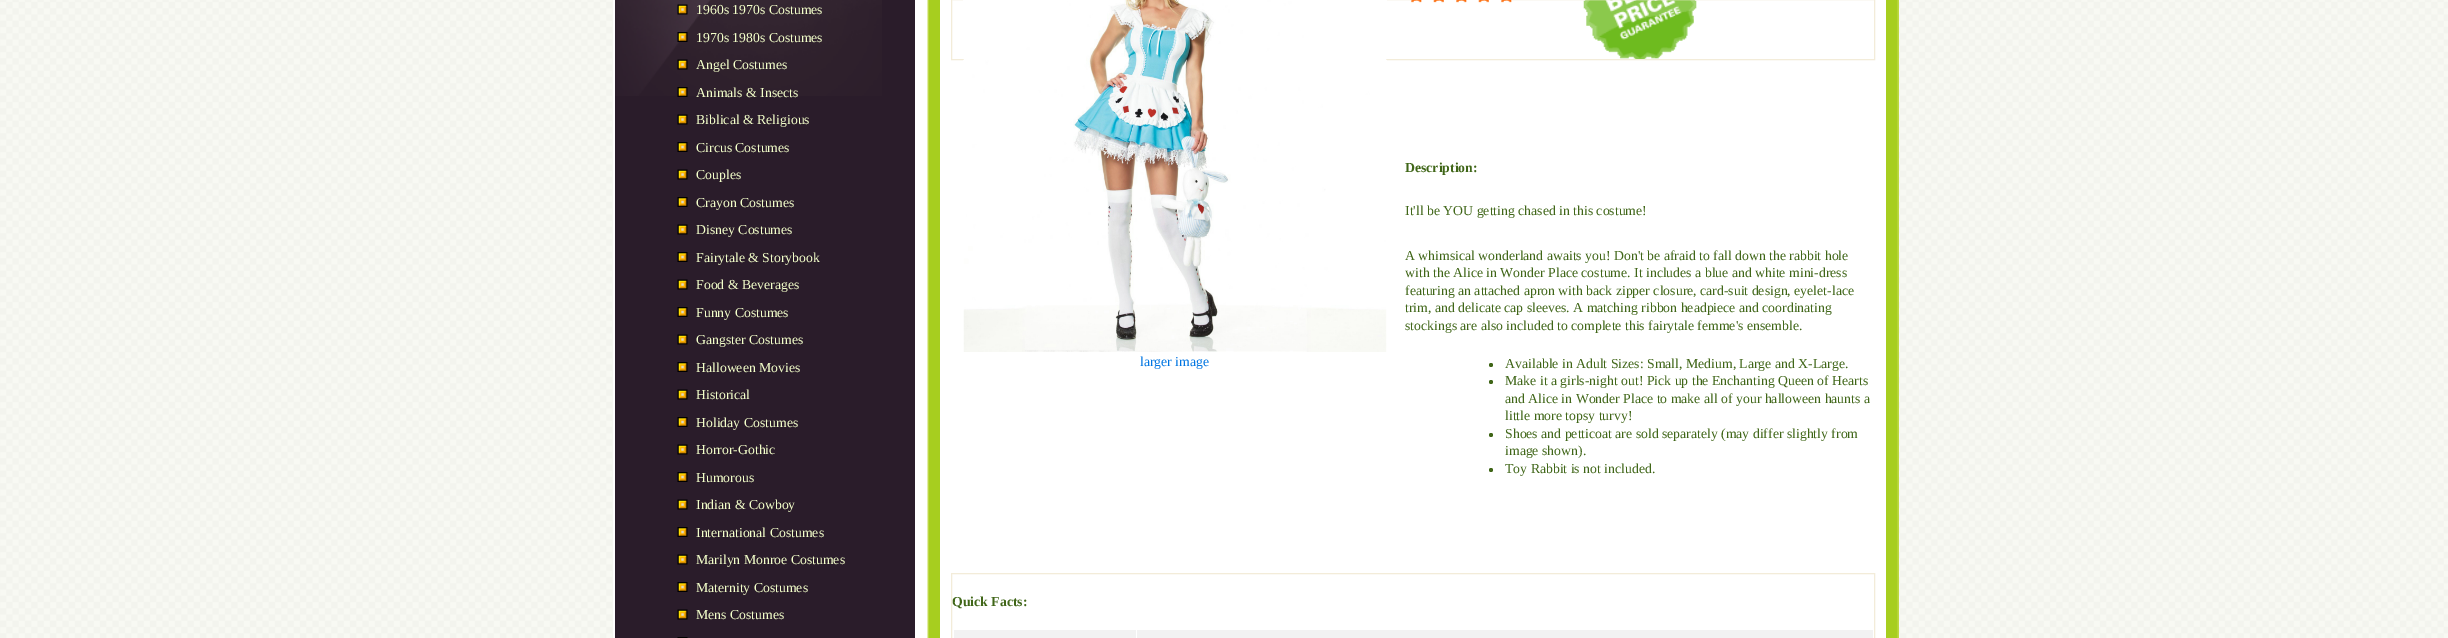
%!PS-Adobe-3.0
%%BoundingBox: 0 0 2448 638
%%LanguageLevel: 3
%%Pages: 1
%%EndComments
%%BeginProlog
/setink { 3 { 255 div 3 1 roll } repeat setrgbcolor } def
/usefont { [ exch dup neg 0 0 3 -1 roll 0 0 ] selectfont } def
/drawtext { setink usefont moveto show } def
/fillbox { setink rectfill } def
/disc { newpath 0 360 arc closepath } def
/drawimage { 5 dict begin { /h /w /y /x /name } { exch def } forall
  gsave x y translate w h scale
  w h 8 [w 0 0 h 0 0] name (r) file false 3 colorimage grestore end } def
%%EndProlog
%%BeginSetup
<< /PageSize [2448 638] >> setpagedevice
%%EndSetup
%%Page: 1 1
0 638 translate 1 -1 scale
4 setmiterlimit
0 0 2448 638 255 255 255 fillbox
(assets/img1.rgb) 0 0 2448 638 drawimage
613 0 315 638 255 255 255 fillbox
615 0 300 638 42 28 42 fillbox
(assets/img2.rgb) 615 0 267 96 drawimage
(assets/img3.rgb) 677 4 11 11 drawimage
(1960s 1970s Costumes) 696 14 /LiberationSerif-Regular 13.75 243 255 202 drawtext
(assets/img4.rgb) 677 32 11 10 drawimage
(1970s 1980s Costumes) 696 42 /LiberationSerif-Regular 13.75 243 255 202 drawtext
(assets/img5.rgb) 677 59 11 11 drawimage
(Angel Costumes) 696 69 /LiberationSerif-Regular 13.75 243 255 202 drawtext
(assets/img6.rgb) 677 87 11 10 drawimage
(Animals & Insects) 696 97 /LiberationSerif-Regular 13.75 243 255 202 drawtext
(assets/img7.rgb) 677 114 11 11 drawimage
(Biblical & Religious) 696 124 /LiberationSerif-Regular 13.75 243 255 202 drawtext
(assets/img8.rgb) 677 142 11 10 drawimage
(Circus Costumes) 696 152 /LiberationSerif-Regular 13.75 243 255 202 drawtext
(assets/img7.rgb) 677 169 11 11 drawimage
(Couples) 696 179 /LiberationSerif-Regular 13.75 243 255 202 drawtext
(assets/img8.rgb) 677 197 11 10 drawimage
(Crayon Costumes) 696 207 /LiberationSerif-Regular 13.75 243 255 202 drawtext
(assets/img7.rgb) 677 224 11 11 drawimage
(Disney Costumes) 696 234 /LiberationSerif-Regular 13.75 243 255 202 drawtext
(assets/img8.rgb) 677 252 11 10 drawimage
(Fairytale & Storybook) 696 262 /LiberationSerif-Regular 13.75 243 255 202 drawtext
(assets/img7.rgb) 677 279 11 11 drawimage
(Food & Beverages) 696 289 /LiberationSerif-Regular 13.75 243 255 202 drawtext
(assets/img9.rgb) 677 307 11 10 drawimage
(Funny Costumes) 696 317 /LiberationSerif-Regular 13.75 243 255 202 drawtext
(assets/img7.rgb) 677 334 11 11 drawimage
(Gangster Costumes) 696 344 /LiberationSerif-Regular 13.75 243 255 202 drawtext
(assets/img8.rgb) 677 362 11 10 drawimage
(Halloween Movies) 696 372 /LiberationSerif-Regular 13.75 243 255 202 drawtext
(assets/img7.rgb) 677 389 11 11 drawimage
(Historical) 696 399 /LiberationSerif-Regular 13.75 243 255 202 drawtext
(assets/img8.rgb) 677 417 11 10 drawimage
(Holiday Costumes) 696 427 /LiberationSerif-Regular 13.75 243 255 202 drawtext
(assets/img7.rgb) 677 444 11 11 drawimage
(Horror-Gothic) 696 454 /LiberationSerif-Regular 13.75 243 255 202 drawtext
(assets/img8.rgb) 677 472 11 10 drawimage
(Humorous) 696 482 /LiberationSerif-Regular 13.75 243 255 202 drawtext
(assets/img7.rgb) 677 499 11 11 drawimage
(Indian & Cowboy) 696 509 /LiberationSerif-Regular 13.75 243 255 202 drawtext
(assets/img8.rgb) 677 527 11 10 drawimage
(International Costumes) 696 537 /LiberationSerif-Regular 13.75 243 255 202 drawtext
(assets/img7.rgb) 677 554 11 11 drawimage
(Marilyn Monroe Costumes) 696 564 /LiberationSerif-Regular 13.75 243 255 202 drawtext
(assets/img8.rgb) 677 582 11 10 drawimage
(Maternity Costumes) 696 592 /LiberationSerif-Regular 13.75 243 255 202 drawtext
(assets/img7.rgb) 677 609 11 11 drawimage
(Mens Costumes) 696 619 /LiberationSerif-Regular 13.75 243 255 202 drawtext
(assets/img10.rgb) 677 637 11 1 drawimage
928 0 971 638 167 206 31 fillbox
(assets/img11.rgb) 927 0 2 638 drawimage
(assets/img12.rgb) 1897 0 2 638 drawimage
940 0 946 638 255 255 255 fillbox
(assets/img13.rgb) 1583 0 114 59 drawimage
243 236 217 setink
951.5 -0.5 923 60 rectstroke
(assets/img14.rgb) 1411 0 101 3 drawimage
(Description:) 1405 172 /LiberationSerif-Bold 13.75 64 102 24 drawtext
(It'll be YOU getting chased in this costume!) 1405 215 /LiberationSerif-Regular 13.75 64 102 24 drawtext
(A whimsical wonderland awaits you! Don't be afraid to fall down the rabbit hole) 1405 260 /LiberationSerif-Regular 13.75 64 102 24 drawtext
(with the Alice in Wonder Place costume. It includes a blue and white mini-dress) 1405 277 /LiberationSerif-Regular 13.75 64 102 24 drawtext
(featuring an attached apron with back zipper closure, card-suit design, eyelet-lace) 1405 295 /LiberationSerif-Regular 13.75 64 102 24 drawtext
(trim, and delicate cap sleeves. A matching ribbon headpiece and coordinating) 1405 312 /LiberationSerif-Regular 13.75 64 102 24 drawtext
(stockings are also included to complete this fairytale femme's ensemble.) 1405 330 /LiberationSerif-Regular 13.75 64 102 24 drawtext
1491 365 2 disc fill
(Available in Adult Sizes: Small, Medium, Large and X-Large.) 1505 368 /LiberationSerif-Regular 13.75 64 102 24 drawtext
1491 382 2 disc fill
(Make it a girls-night out! Pick up the Enchanting Queen of Hearts) 1505 385 /LiberationSerif-Regular 13.75 64 102 24 drawtext
(and Alice in Wonder Place to make all of your halloween haunts a) 1505 403 /LiberationSerif-Regular 13.75 64 102 24 drawtext
(little more topsy turvy!) 1505 420 /LiberationSerif-Regular 13.75 64 102 24 drawtext
1491 435 2 disc fill
(Shoes and petticoat are sold separately \(may differ slightly from) 1505 438 /LiberationSerif-Regular 13.75 64 102 24 drawtext
(image shown\).) 1505 455 /LiberationSerif-Regular 13.75 64 102 24 drawtext
1491 470 2 disc fill
(Toy Rabbit is not included.) 1505 473 /LiberationSerif-Regular 13.75 64 102 24 drawtext
243 236 217 setink
951.5 573.5 923 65 rectstroke
(Quick Facts:) 952 606 /LiberationSerif-Bold 13.75 64 102 24 drawtext
954 630 919 8 242 242 242 fillbox
1136 629 1 9 255 255 255 fillbox
(assets/img15.rgb) 963 0 424 352 drawimage
(larger image) 1140 366 /LiberationSerif-Regular 13.75 0 117 226 drawtext
showpage
%%EOF
